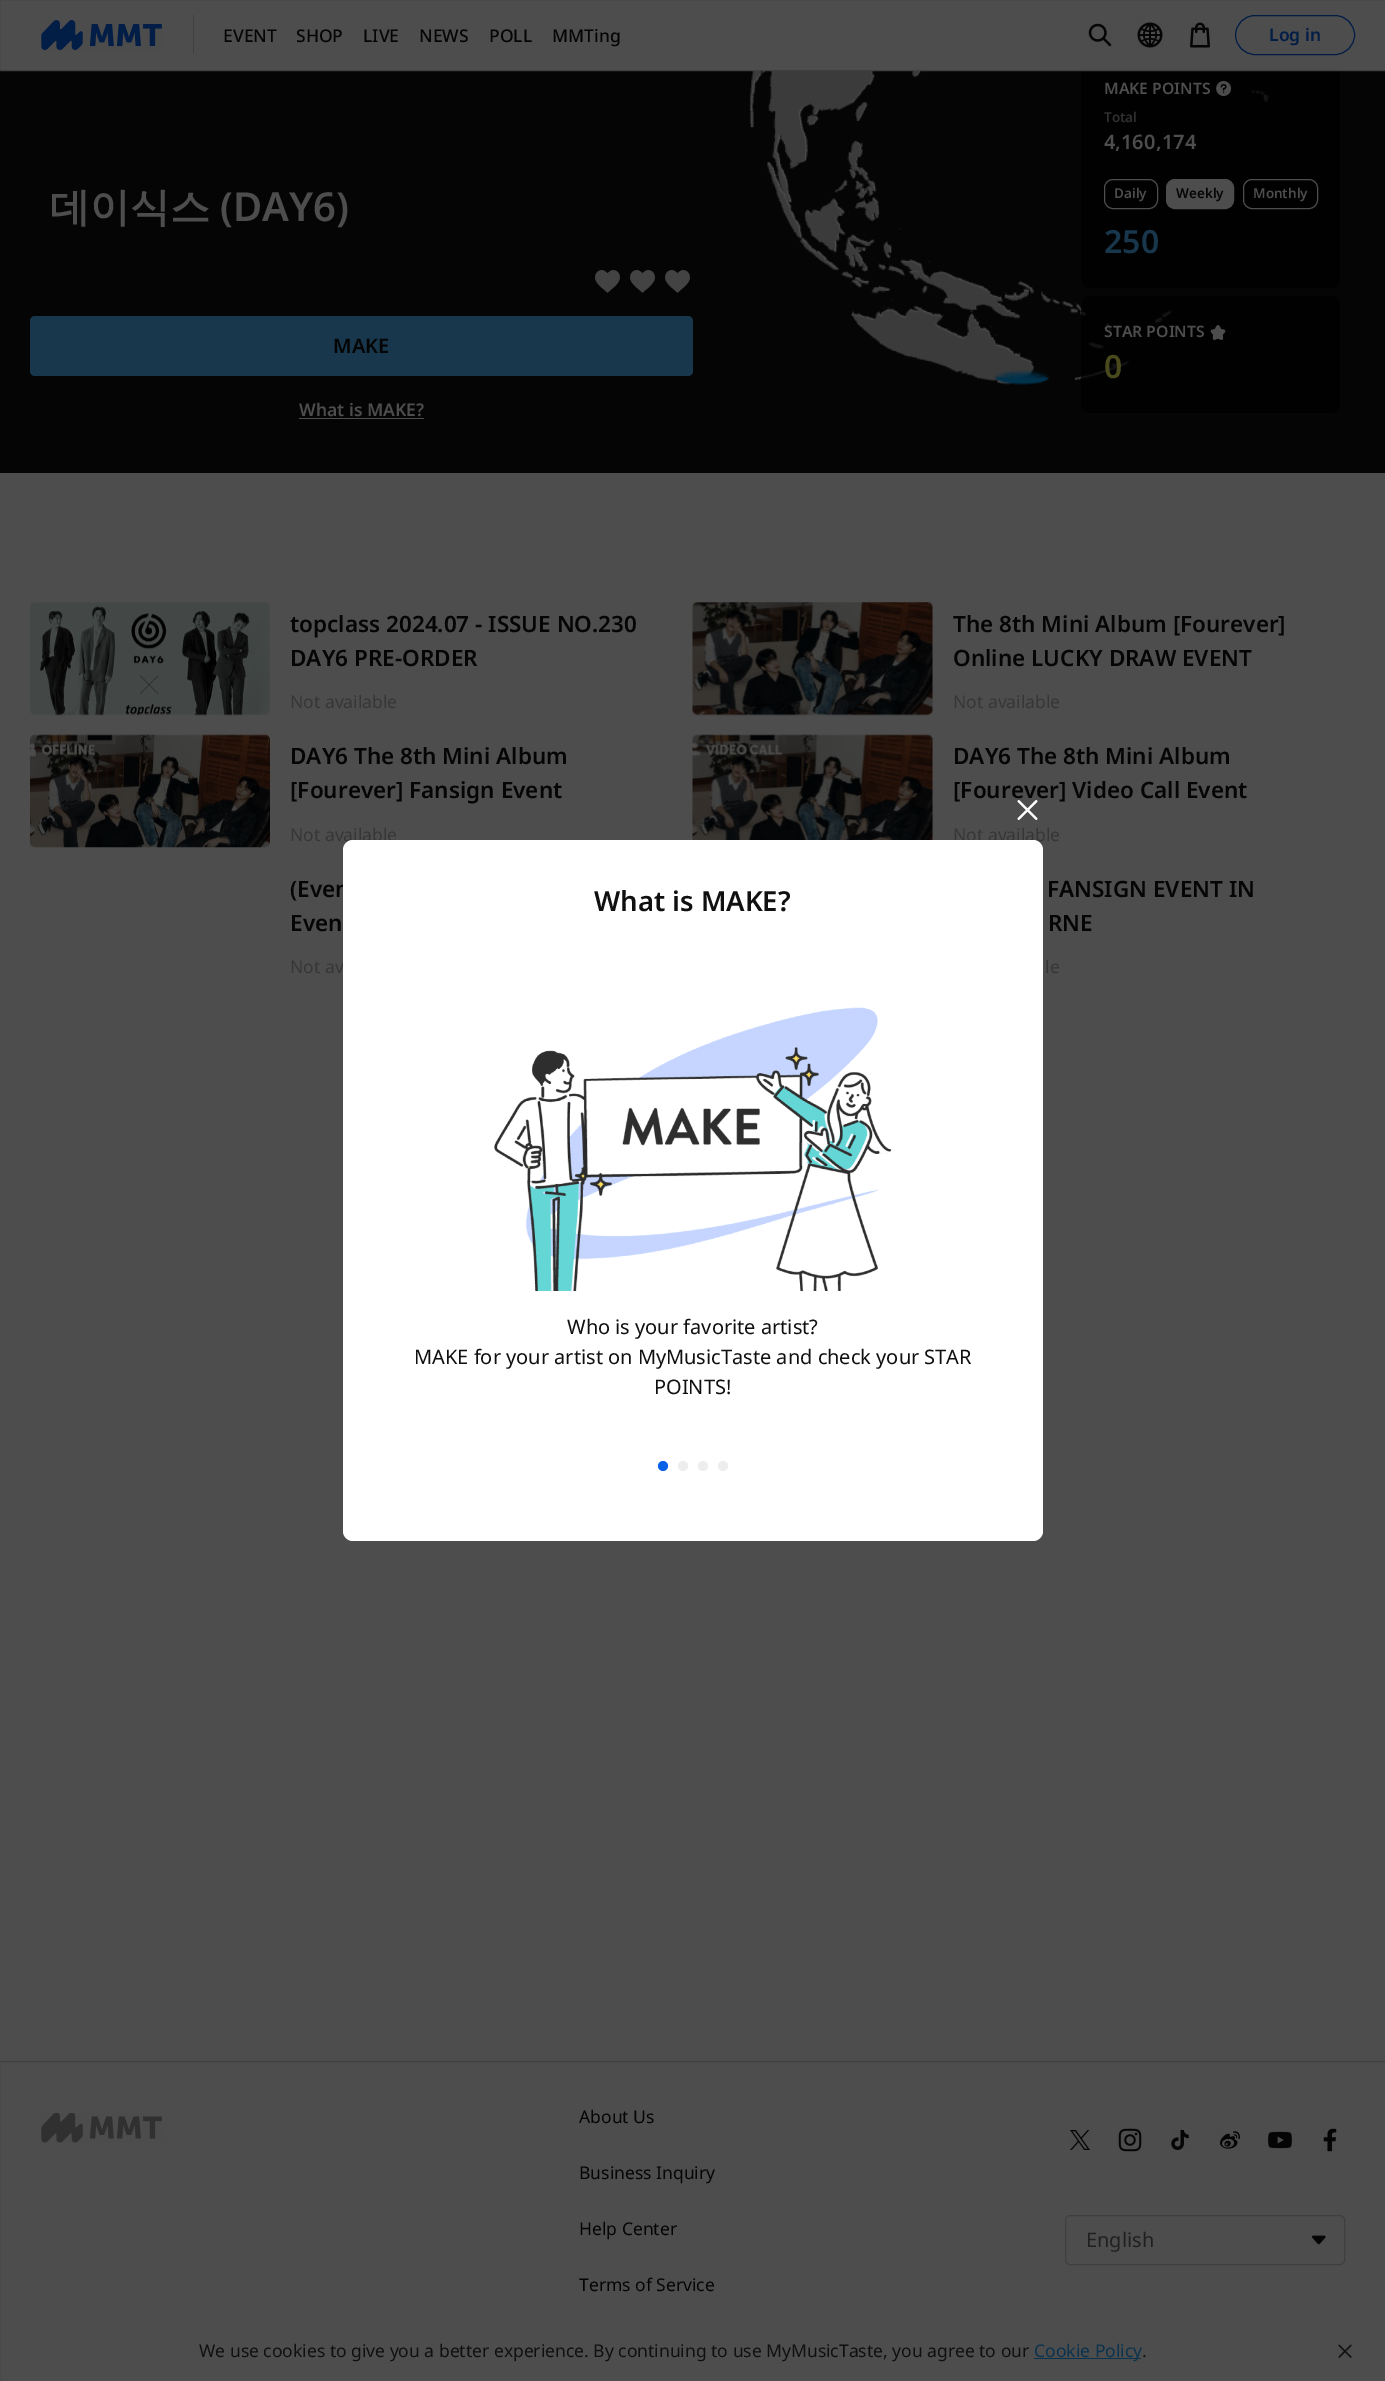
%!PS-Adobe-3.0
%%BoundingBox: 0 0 1385 2381
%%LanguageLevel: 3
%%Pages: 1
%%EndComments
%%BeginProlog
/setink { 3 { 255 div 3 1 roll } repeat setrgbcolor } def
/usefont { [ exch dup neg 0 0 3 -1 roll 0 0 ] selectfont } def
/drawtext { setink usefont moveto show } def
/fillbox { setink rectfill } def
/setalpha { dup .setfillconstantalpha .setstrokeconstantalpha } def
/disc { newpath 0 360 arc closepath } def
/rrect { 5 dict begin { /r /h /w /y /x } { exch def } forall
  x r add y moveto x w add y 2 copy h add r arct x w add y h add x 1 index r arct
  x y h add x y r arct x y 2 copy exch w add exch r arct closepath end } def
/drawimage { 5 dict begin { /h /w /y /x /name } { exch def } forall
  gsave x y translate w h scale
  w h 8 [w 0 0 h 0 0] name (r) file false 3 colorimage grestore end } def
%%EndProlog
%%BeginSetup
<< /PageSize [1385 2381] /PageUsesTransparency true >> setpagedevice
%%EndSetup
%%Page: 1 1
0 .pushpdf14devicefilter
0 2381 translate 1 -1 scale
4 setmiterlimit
0 0 1385 2381 77 77 77 fillbox
0 71 1385 402 5 5 5 fillbox
(assets/img6.rgb) 749 71 520 314 drawimage
0.7 setalpha
0 0 0 setink
1081 54 259 234 9 rrect fill
1 setalpha
1081 54 259 16 77 77 77 fillbox
63 63 63 setink
-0.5 -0.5 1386 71 rectstroke
(assets/img1.rgb) 41 20 121 30 drawimage
193 15 1 38 63 63 63 fillbox
(EVENT) 223 42 /NotoSans-Medium 17.5 5 5 5 drawtext
(SHOP) 296 42 /NotoSans-Medium 17.5 5 5 5 drawtext
(LIVE) 363 42 /NotoSans-Medium 17.5 5 5 5 drawtext
(NEWS) 419 42 /NotoSans-Medium 17.5 5 5 5 drawtext
(POLL) 489 42 /NotoSans-Medium 17.5 5 5 5 drawtext
(MMTing) 552 42 /NotoSans-Medium 17.5 5 5 5 drawtext
(assets/img2.rgb) 1088 23 24 24 drawimage
(assets/img3.rgb) 1137 22 26 26 drawimage
(assets/img4.rgb) 1190 22 20 26 drawimage
2 29 70 setink
1235.5 15.5 119 39 19.5 rrect stroke
(Log in) 1269 41 /NotoSans-SemiBold 17.5 2 29 70 drawtext
(데이식스) 50 221 /WenQuanYiZenHei-Bold 40 77 77 77 drawtext
(\(DAY6\)) 220 221 /NotoSans-SemiBold 40 77 77 77 drawtext
(assets/img5.rgb) 595 270 25 23 drawimage
(assets/img5.rgb) 630 270 25 23 drawimage
(assets/img5.rgb) 665 270 25 23 drawimage
24 55 77 setink
30 316 663 60 5 rrect fill
(MAKE) 333 353 /NotoSans-SemiBold 20 5 5 5 drawtext
(What is MAKE?) 299 416 /NotoSans-SemiBold 17.5 77 77 77 drawtext
299 418 125 1 77 77 77 fillbox
(MAKE POINTS) 1104 94 /NotoSans-SemiBold 15.75 77 77 77 drawtext
(assets/img7.rgb) 1216 81 16 15 drawimage
(Total) 1104 122 /NotoSans-SemiBold 13.5 48 48 48 drawtext
(4) 1104 149 /NotoSans-SemiBold 20 77 77 77 drawtext
gsave
1115 131 6 20 rectclip
(,) 1115 149 /NotoSans-SemiBold 20 77 77 77 drawtext
grestore
(160) 1121 149 /NotoSans-SemiBold 20 77 77 77 drawtext
gsave
1156 131 5 20 rectclip
(,) 1156 149 /NotoSans-SemiBold 20 77 77 77 drawtext
grestore
(174) 1162 149 /NotoSans-SemiBold 20 77 77 77 drawtext
1104.5 179.5 53 29 8.5 rrect stroke
(Daily) 1114 198 /NotoSans-SemiBold 13.5 77 77 77 drawtext
1166.5 179.5 67 29 8.5 rrect gsave fill grestore
stroke
(Weekly) 1176 198 /NotoSans-SemiBold 13.5 5 5 5 drawtext
77 77 77 setink
1243.5 179.5 74 29 8.5 rrect stroke
(Monthly) 1253 198 /NotoSans-SemiBold 13.5 77 77 77 drawtext
(250) 1104 253 /NotoSans-SemiBold 32 24 55 77 drawtext
0.7 setalpha
0 0 0 setink
1081 296 259 117 9 rrect fill
1 setalpha
(STAR POINTS) 1104 337 /NotoSans-SemiBold 15.75 77 77 77 drawtext
(assets/img8.rgb) 1210 325 16 15 drawimage
(0) 1104 378 /NotoSans-SemiBold 32 74 73 30 drawtext
(assets/img9.rgb) 30 602 240 114 drawimage
(topclass 2024.07 - ISSUE NO.230) 290 632 /NotoSans-SemiBold 22.5 5 5 5 drawtext
(DAY6 PRE-ORDER) 290 666 /NotoSans-SemiBold 22.5 5 5 5 drawtext
(Not available) 290 708 /NotoSans-Regular 17.5 54 54 54 drawtext
(assets/img10.rgb) 692 602 241 114 drawimage
(The 8th Mini Album [Fourever]) 953 632 /NotoSans-SemiBold 22.5 5 5 5 drawtext
(Online LUCKY DRAW EVENT) 953 666 /NotoSans-SemiBold 22.5 5 5 5 drawtext
(Not available) 953 708 /NotoSans-Regular 17.5 54 54 54 drawtext
(assets/img11.rgb) 30 734 240 114 drawimage
(DAY6 The 8th Mini Album) 290 764 /NotoSans-SemiBold 22.5 5 5 5 drawtext
([Fourever] Fansign Event) 290 798 /NotoSans-SemiBold 22.5 5 5 5 drawtext
(Not available) 290 841 /NotoSans-Regular 17.5 54 54 54 drawtext
(assets/img12.rgb) 692 734 241 106 drawimage
(DAY6 The 8th Mini Album) 953 764 /NotoSans-SemiBold 22.5 5 5 5 drawtext
([Fourever] Video Call Event) 953 798 /NotoSans-SemiBold 22.5 5 5 5 drawtext
(Not available) 953 841 /NotoSans-Regular 17.5 54 54 54 drawtext
(\(Even) 290 897 /NotoSans-SemiBold 22.5 5 5 5 drawtext
(Even) 290 931 /NotoSans-SemiBold 22.5 5 5 5 drawtext
(Not av) 290 973 /NotoSans-Regular 17.5 54 54 54 drawtext
(FANSIGN EVENT IN) 1047 897 /NotoSans-SemiBold 22.5 5 5 5 drawtext
(RNE) 1048 931 /NotoSans-SemiBold 22.5 5 5 5 drawtext
(le) 1045 973 /NotoSans-Regular 17.5 54 54 54 drawtext
255 255 255 setink
343 840 700 701 10 rrect fill
(assets/img13.rgb) 1017 800 21 20 drawimage
(What is MAKE?) 594 911 /NotoSans-SemiBold 27.5 16 16 16 drawtext
(assets/img14.rgb) 494 1007 398 284 drawimage
(Who is your favorite artist?) 567 1334 /NotoSans-Regular 20 16 16 16 drawtext
(MAKE for your artist on MyMusicTaste and check your STAR) 414 1364 /NotoSans-Regular 20 16 16 16 drawtext
(POINTS!) 654 1394 /NotoSans-Regular 20 16 16 16 drawtext
7 96 232 setink
663 1466 5 disc fill
237 237 237 setink
683 1466 5 disc fill
703 1466 5 disc fill
723 1466 5 disc fill
63 63 63 setink
-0.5 2061.5 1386 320 rectstroke
(assets/img15.rgb) 41 2113 121 30 drawimage
(About Us) 579 2123 /NotoSans-Regular 17.5 5 5 5 drawtext
(Business Inquiry) 579 2179 /NotoSans-Regular 17.5 5 5 5 drawtext
(Help Center) 579 2235 /NotoSans-Regular 17.5 5 5 5 drawtext
(Terms of Service) 579 2291 /NotoSans-Regular 17.5 5 5 5 drawtext
(assets/img16.rgb) 1070 2130 20 20 drawimage
(assets/img17.rgb) 1118 2128 24 24 drawimage
(assets/img18.rgb) 1171 2130 18 20 drawimage
(assets/img19.rgb) 1220 2131 20 18 drawimage
(assets/img20.rgb) 1268 2131 24 18 drawimage
(assets/img21.rgb) 1323 2128 14 24 drawimage
63 63 63 setink
1065.5 2215.5 279 49 4.5 rrect stroke
(English) 1086 2247 /NotoSans-Regular 20 32 32 32 drawtext
(assets/img22.rgb) 1312 2235 14 10 drawimage
(We use cookies to give you a better experience. By continuing to use MyMusicTaste, you agree to our) 199 2357 /NotoSans-Regular 17.5 16 16 16 drawtext
1034 2358 107 1 11 50 77 fillbox
(Cookie Policy) 1034 2357 /NotoSans-Regular 17.5 11 50 77 drawtext
(.) 1142 2357 /NotoSans-Regular 17.5 16 16 16 drawtext
(assets/img23.rgb) 1338 2344 14 14 drawimage
.poppdf14devicefilter showpage
%%EOF
